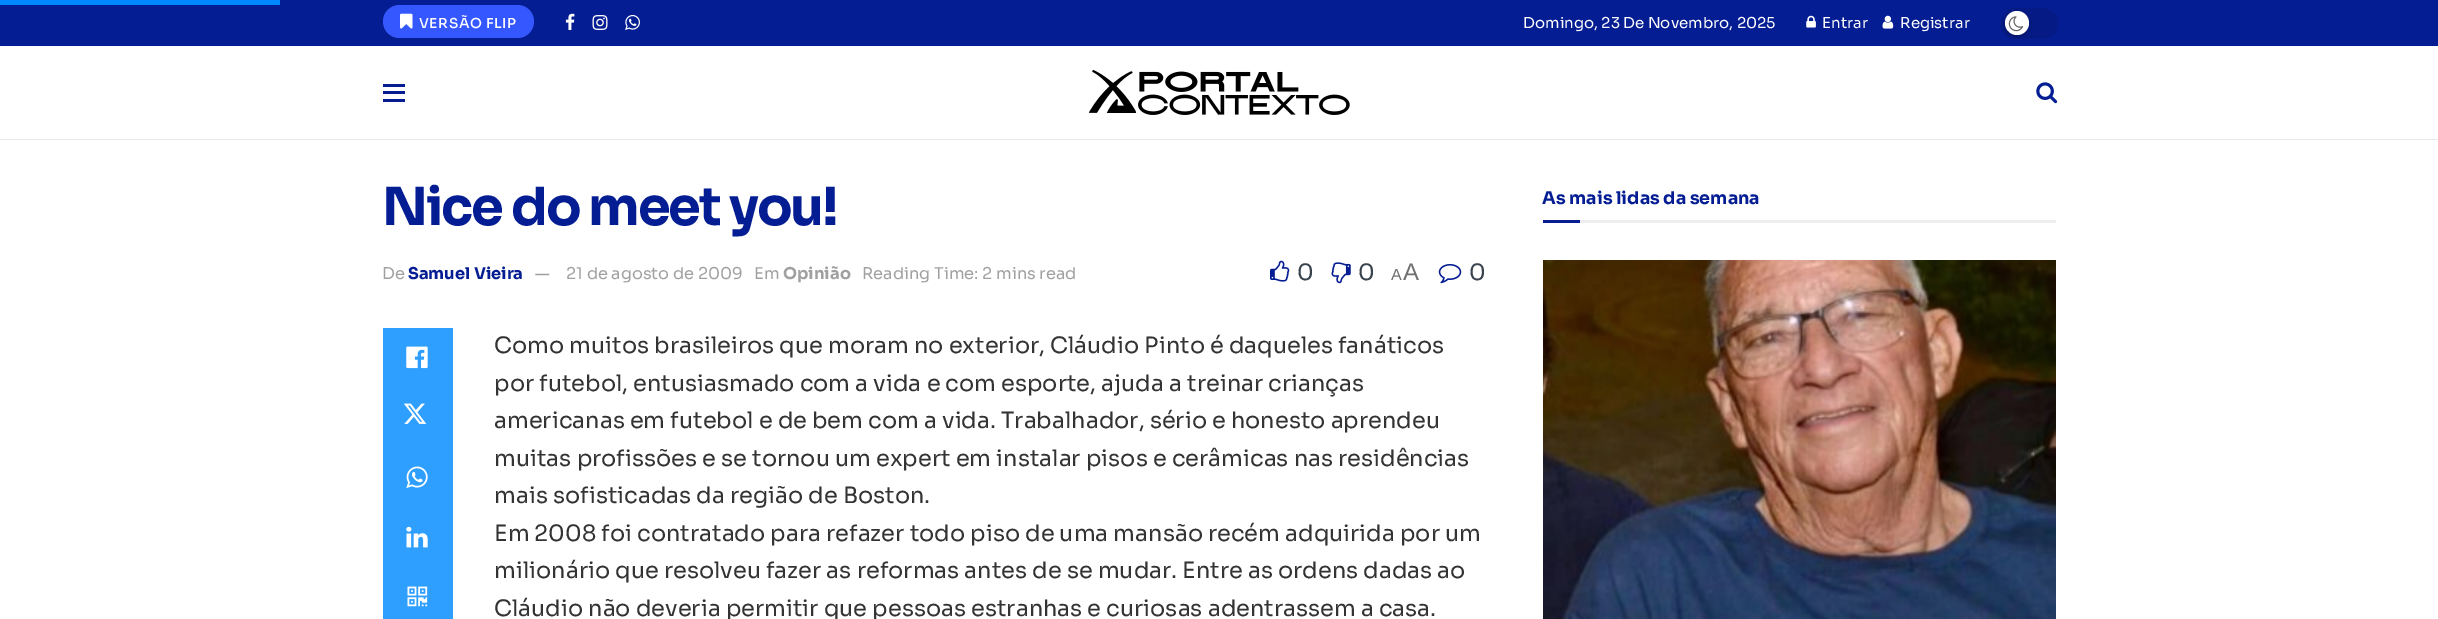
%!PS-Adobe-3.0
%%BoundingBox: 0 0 2438 619
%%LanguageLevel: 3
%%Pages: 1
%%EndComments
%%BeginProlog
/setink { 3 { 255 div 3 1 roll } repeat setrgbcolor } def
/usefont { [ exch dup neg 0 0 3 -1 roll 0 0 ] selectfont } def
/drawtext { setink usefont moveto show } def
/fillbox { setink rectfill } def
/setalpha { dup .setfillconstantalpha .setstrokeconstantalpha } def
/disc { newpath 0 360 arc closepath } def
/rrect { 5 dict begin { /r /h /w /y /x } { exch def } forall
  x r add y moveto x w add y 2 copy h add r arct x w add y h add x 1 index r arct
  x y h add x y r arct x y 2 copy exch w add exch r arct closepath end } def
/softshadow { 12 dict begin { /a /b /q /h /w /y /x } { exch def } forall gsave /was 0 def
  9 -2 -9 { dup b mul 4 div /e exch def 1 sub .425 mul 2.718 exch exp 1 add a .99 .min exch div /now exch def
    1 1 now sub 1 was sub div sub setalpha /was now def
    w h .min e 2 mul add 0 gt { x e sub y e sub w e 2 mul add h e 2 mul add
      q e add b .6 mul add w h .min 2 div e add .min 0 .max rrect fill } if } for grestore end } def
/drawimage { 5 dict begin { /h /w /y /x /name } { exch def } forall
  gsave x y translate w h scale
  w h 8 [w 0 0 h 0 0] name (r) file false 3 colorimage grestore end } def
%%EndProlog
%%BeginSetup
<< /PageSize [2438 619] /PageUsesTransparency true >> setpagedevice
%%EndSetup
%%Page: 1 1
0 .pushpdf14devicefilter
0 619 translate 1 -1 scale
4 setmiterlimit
0 0 2438 619 255 255 255 fillbox
0 0 2438 46 5 29 147 fillbox
0 0 280 5 0 136 255 fillbox
53 87 255 setink
383 5 151 33 16.5 rrect fill
(assets/img1.rgb) 400 13 13 16 drawimage
/Sora-Medium 13.75 usefont
255 255 255 setink
419 28 moveto 0.6 0 (VERSÃO FLIP) ashow
(assets/img2.rgb) 565 13 10 17 drawimage
(assets/img3.rgb) 592 15 16 15 drawimage
(assets/img4.rgb) 625 14 15 16 drawimage
(Domingo, 23 De Novembro, 2025) 1523 28 /Sora-Regular 15 255 255 255 drawtext
(assets/img5.rgb) 1806 15 10 13 drawimage
(Entrar) 1822 28 /Sora-Regular 15 255 255 255 drawtext
(assets/img6.rgb) 1882 15 12 14 drawimage
(Registrar) 1900 28 /Sora-Regular 15 255 255 255 drawtext
5 26 132 setink
2001 8 57 31 15.5 rrect fill
0 0 0 setink
2005 13 24 23 11.5 2 0.3 softshadow
255 255 255 setink
2017 23 12 disc fill
(assets/img7.rgb) 2008 16 16 16 drawimage
0 139 2438 1 232 232 232 fillbox
383 84 22 3 5 29 147 fillbox
383 91 22 3 5 29 147 fillbox
383 99 22 3 5 29 147 fillbox
(assets/img8.rgb) 1089 70 261 45 drawimage
(assets/img9.rgb) 2036 82 22 22 drawimage
/Sora-Bold 52.5 usefont
382 225 moveto -2.1 0 (Nice do meet you!) ashow
(De) 382 279 /Sora-Regular 16.25 160 160 160 drawtext
(Samuel Vieira) 408 279 /Sora-Bold 16.25 5 29 147 drawtext
(—) 535 279 /Sora-Regular 16.25 160 160 160 drawtext
(21 de agosto de 2009) 566 279 /Sora-Regular 16.25 160 160 160 drawtext
(Em) 754 279 /Sora-Regular 16.25 160 160 160 drawtext
(Opinião) 783 279 /Sora-Bold 16.25 160 160 160 drawtext
(Reading Time: 2 mins read) 862 279 /Sora-Regular 16.25 160 160 160 drawtext
(assets/img10.rgb) 1270 260 20 22 drawimage
(0) 1297 280 /Sora-Regular 22.5 57 67 77 drawtext
(assets/img11.rgb) 1331 262 20 22 drawimage
(0) 1358 280 /Sora-Regular 22.5 57 67 77 drawtext
(A) 1391 280 /LiberationSans-Regular 16 112 112 112 drawtext
(A) 1403 280 /LiberationSans-Regular 24 112 112 112 drawtext
(assets/img12.rgb) 1438 263 24 21 drawimage
(0) 1469 280 /Sora-Regular 22.5 57 67 77 drawtext
383 328 70 291 46 159 255 fillbox
(assets/img13.rgb) 406 346 22 23 drawimage
(assets/img14.rgb) 403 403 24 21 drawimage
(assets/img15.rgb) 406 466 22 22 drawimage
(assets/img16.rgb) 406 526 22 22 drawimage
(assets/img17.rgb) 407 586 21 21 drawimage
(Como muitos brasileiros que moram no exterior, Cláudio Pinto é daqueles fanáticos) 494 353 /Sora-Regular 22.5 51 51 51 drawtext
(por futebol, entusiasmado com a vida e com esporte, ajuda a treinar crianças) 494 391 /Sora-Regular 22.5 51 51 51 drawtext
(americanas em futebol e de bem com a vida. Trabalhador, sério e honesto aprendeu) 494 428 /Sora-Regular 22.5 51 51 51 drawtext
(muitas profissões e se tornou um expert em instalar pisos e cerâmicas nas residências) 494 466 /Sora-Regular 22.5 51 51 51 drawtext
(mais sofisticadas da região de Boston.) 494 503 /Sora-Regular 22.5 51 51 51 drawtext
(Em 2008 foi contratado para refazer todo piso de uma mansão recém adquirida por um) 494 541 /Sora-Regular 22.5 51 51 51 drawtext
(milionário que resolveu fazer as reformas antes de se mudar. Entre as ordens dadas ao) 494 578 /Sora-Regular 22.5 51 51 51 drawtext
(Cláudio não deveria permitir que pessoas estranhas e curiosas adentrassem a casa.) 494 616 /Sora-Regular 22.5 51 51 51 drawtext
1580 220 476 3 238 238 238 fillbox
(As mais lidas da semana) 1542 204 /Sora-Bold 17.5 5 29 147 drawtext
1543 220 37 3 5 29 147 fillbox
(assets/img18.rgb) 1543 260 513 359 drawimage
.poppdf14devicefilter showpage
%%EOF
